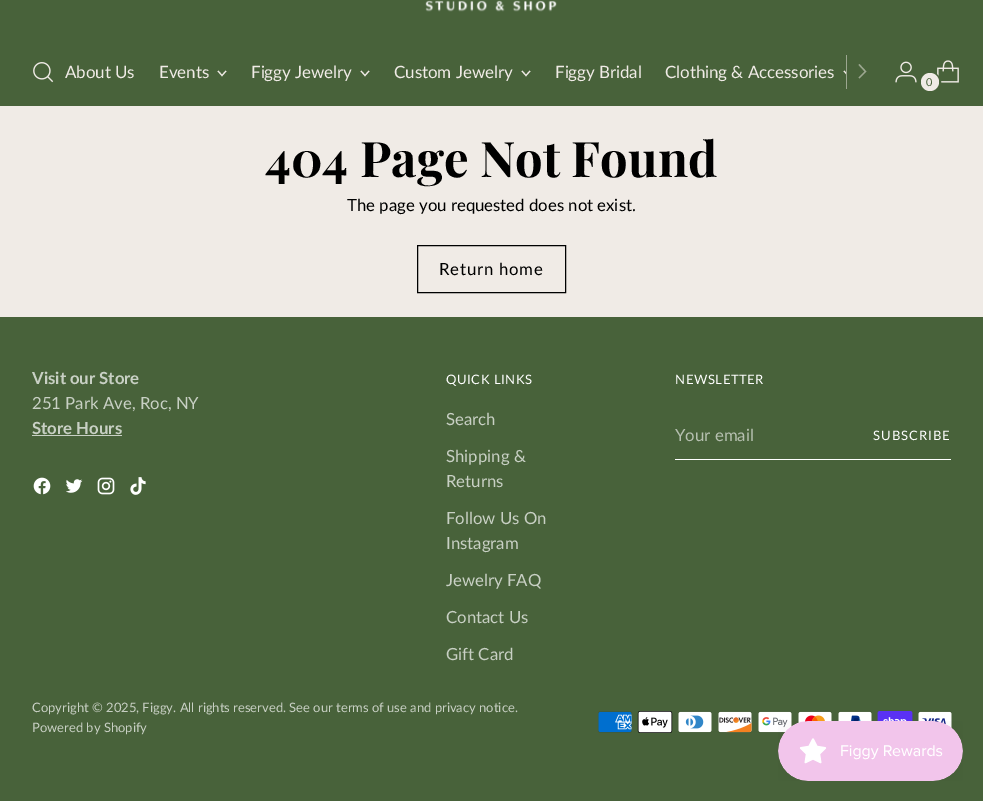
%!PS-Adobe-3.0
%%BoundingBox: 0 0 983 801
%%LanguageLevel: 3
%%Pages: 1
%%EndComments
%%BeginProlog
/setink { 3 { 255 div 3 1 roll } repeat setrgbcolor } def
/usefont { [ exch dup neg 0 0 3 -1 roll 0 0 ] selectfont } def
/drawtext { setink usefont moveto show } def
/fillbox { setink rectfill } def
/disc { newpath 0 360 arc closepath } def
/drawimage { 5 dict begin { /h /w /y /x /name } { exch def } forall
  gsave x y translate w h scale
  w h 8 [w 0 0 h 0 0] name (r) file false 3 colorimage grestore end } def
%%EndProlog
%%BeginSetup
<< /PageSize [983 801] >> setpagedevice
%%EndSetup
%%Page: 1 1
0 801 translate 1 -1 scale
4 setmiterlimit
0 0 983 801 240 235 230 fillbox
0 0 983 106 72 98 58 fillbox
(assets/img1.rgb) 425 0 132 12 drawimage
(assets/img2.rgb) 33 62 21 21 drawimage
/Lato-Regular 17 usefont
240 235 230 setink
65 78 moveto -0.1 0 (About Us) ashow
159 78 moveto -0.1 0 (Events) ashow
1.1 setlinewidth
218 71 moveto 222 75.5 lineto 226 71 lineto stroke
251 78 moveto -0.1 0 (Figgy Jewelry) ashow
361 71 moveto 365 75.5 lineto 369 71 lineto stroke
394 78 moveto -0.1 0 (Custom Jewelry) ashow
522 71 moveto 526 75.5 lineto 530 71 lineto stroke
555 78 moveto -0.1 0 (Figgy Bridal) ashow
665 78 moveto -0.1 0 (Clothing & Accessories) ashow
gsave
843 68 3 10 rectclip
844 71 moveto 848 75.5 lineto 852 71 lineto stroke
grestore
846 55 1 34 156 167 144 fillbox
1.3 setlinewidth
859 78 moveto 865.5 71.5 lineto 859 64.5 lineto stroke
(assets/img3.rgb) 895 61 22 22 drawimage
(assets/img4.rgb) 937 60 22 23 drawimage
72 98 58 setink
2 setlinewidth
930.5 82.5 9.5 disc stroke
240 235 230 setink
930 82 9 disc fill
(0) 926 86 /Lato-Regular 11 72 98 58 drawtext
(404 Page Not Found) 265 177 /PlayfairDisplay-Bold 49 0 0 0 drawtext
(The page you requested does not exist.) 347 211 /Lato-Regular 16.75 0 0 0 drawtext
1 setlinewidth
417.5 245.5 148 47 rectstroke
439 275 moveto 0.75 0 (Return home) ashow
0 317 983 484 72 98 58 fillbox
(Visit our Store) 32 384 /Lato-Bold 16.75 200 208 196 drawtext
(251 Park Ave, Roc, NY) 32 409 /Lato-Regular 16.75 200 208 196 drawtext
(Store Hours) 32 434 /Lato-Bold 16.75 200 208 196 drawtext
32 435 90 1 200 208 196 fillbox
(assets/img5.rgb) 33 477 18 18 drawimage
(assets/img6.rgb) 66 479 17 14 drawimage
(assets/img7.rgb) 97 477 18 18 drawimage
(assets/img8.rgb) 130 477 16 18 drawimage
/Lato-Regular 13 usefont
255 255 255 setink
446 384 moveto 0.6 0 (QUICK LINKS) ashow
(Search) 446 425 /Lato-Regular 16.75 200 208 196 drawtext
(Shipping &) 446 462 /Lato-Regular 16.75 200 208 196 drawtext
(Returns) 446 487 /Lato-Regular 16.75 200 208 196 drawtext
(Follow Us On) 446 524 /Lato-Regular 16.75 200 208 196 drawtext
(Instagram) 446 549 /Lato-Regular 16.75 200 208 196 drawtext
(Jewelry FAQ) 446 586 /Lato-Regular 16.75 200 208 196 drawtext
(Contact Us) 446 623 /Lato-Regular 16.75 200 208 196 drawtext
(Gift Card) 446 660 /Lato-Regular 16.75 200 208 196 drawtext
/Lato-Regular 13 usefont
255 255 255 setink
675 384 moveto 0.6 0 (NEWSLETTER) ashow
675 459 276 1 255 255 255 fillbox
(Your email) 675 441 /Lato-Regular 16.75 182 192 176 drawtext
/Lato-Regular 13 usefont
255 255 255 setink
873 440 moveto 1 0 (SUBSCRIBE) ashow
(Copyright © 2025, Figgy. All rights reserved. See our terms of use and privacy notice.) 32 712 /Lato-Regular 13 200 208 196 drawtext
(Powered by Shopify) 32 732 /Lato-Regular 13 200 208 196 drawtext
(assets/img9.rgb) 598 711 34 22 drawimage
(assets/img10.rgb) 637 711 36 22 drawimage
(assets/img11.rgb) 678 711 34 22 drawimage
(assets/img12.rgb) 718 711 34 22 drawimage
(assets/img13.rgb) 758 711 34 22 drawimage
(assets/img14.rgb) 798 711 34 12 drawimage
(assets/img15.rgb) 838 711 34 10 drawimage
(assets/img16.rgb) 877 711 36 10 drawimage
(assets/img17.rgb) 918 711 34 17 drawimage
(assets/img18.rgb) 778 721 185 60 drawimage
showpage
%%EOF
